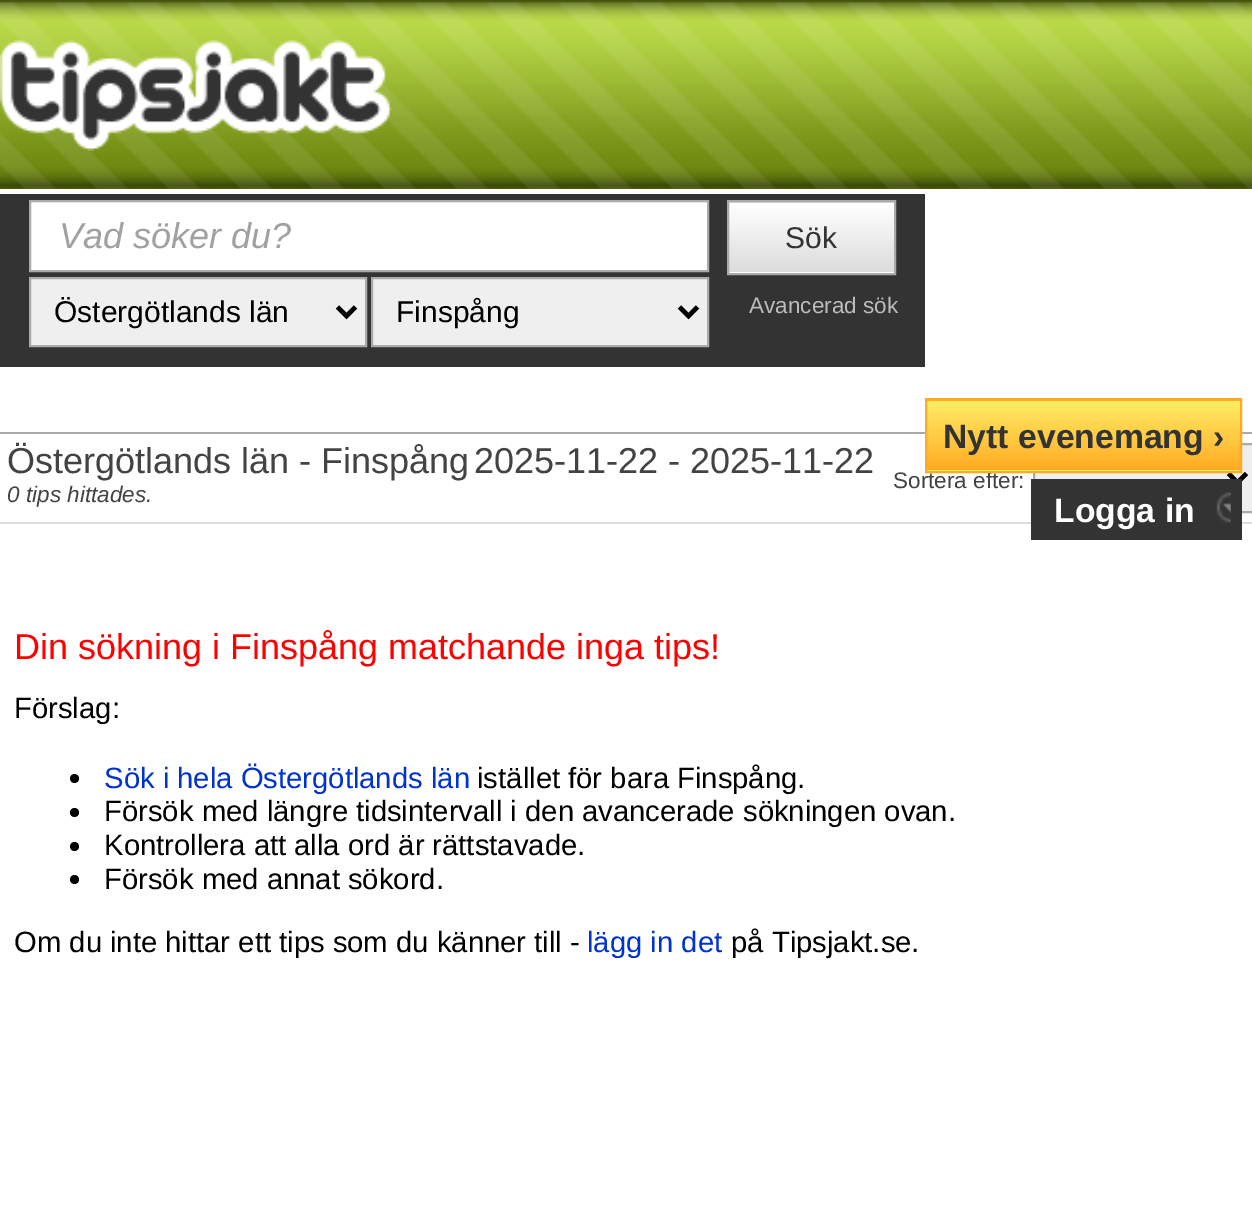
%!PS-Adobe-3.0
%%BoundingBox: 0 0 1252 1215
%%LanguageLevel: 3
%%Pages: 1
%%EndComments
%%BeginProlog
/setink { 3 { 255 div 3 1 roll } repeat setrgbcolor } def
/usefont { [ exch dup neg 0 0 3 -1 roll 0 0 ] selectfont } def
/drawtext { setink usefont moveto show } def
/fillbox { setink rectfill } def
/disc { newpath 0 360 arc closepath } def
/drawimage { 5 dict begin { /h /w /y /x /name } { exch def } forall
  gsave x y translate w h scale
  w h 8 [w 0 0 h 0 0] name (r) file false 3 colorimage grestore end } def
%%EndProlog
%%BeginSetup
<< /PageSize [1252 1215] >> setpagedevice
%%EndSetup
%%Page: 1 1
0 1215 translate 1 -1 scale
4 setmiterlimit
0 0 1252 1215 255 255 255 fillbox
(assets/img1.rgb) 0 0 1252 189 drawimage
(assets/img2.rgb) 0 40 392 111 drawimage
0 194 925 173 51 51 51 fillbox
255 255 255 setink
30 201 moveto 708 201 lineto 708 271 lineto 30 271 lineto closepath gsave fill grestore
170 170 170 setink
2 setlinewidth
stroke
(Vad söker du?) 59 248 /LiberationSans-Italic 36 161 161 161 drawtext
239 239 239 setink
30 278 moveto 366 278 lineto 366 346 lineto 30 346 lineto closepath gsave fill grestore
170 170 170 setink
stroke
0 0 0 setink
4.5 setlinewidth
337.5 307 moveto 346.5 316 lineto 355.5 307 lineto stroke
(Östergötlands län) 54 322 /LiberationSans-Regular 30 0 0 0 drawtext
239 239 239 setink
372 278 moveto 708 278 lineto 708 346 lineto 372 346 lineto closepath gsave fill grestore
170 170 170 setink
2 setlinewidth
stroke
0 0 0 setink
4.5 setlinewidth
679.5 307 moveto 688.5 316 lineto 697.5 307 lineto stroke
(Finspång) 396 322 /LiberationSans-Regular 30 0 0 0 drawtext
gsave 727 202 moveto 896 202 lineto 896 203 lineto 727 203 lineto closepath clip newpath
<< /ShadingType 2 /ColorSpace /DeviceRGB /Coords [811 133 811 203] /Extend [true true] /Function << /FunctionType 2 /Domain [0 1] /C0 [1 1 1] /C1 [0.863 0.863 0.863] /N 1 >> >> shfill grestore
gsave 729 203 moveto 894 203 lineto 894 272 lineto 729 272 lineto closepath clip newpath
<< /ShadingType 2 /ColorSpace /DeviceRGB /Coords [811 203 811 272] /Extend [true true] /Function << /FunctionType 2 /Domain [0 1] /C0 [1 1 1] /C1 [0.863 0.863 0.863] /N 1 >> >> shfill grestore
gsave 727 272 moveto 896 272 lineto 896 273 lineto 727 273 lineto closepath clip newpath
<< /ShadingType 2 /ColorSpace /DeviceRGB /Coords [811 272 811 342] /Extend [true true] /Function << /FunctionType 2 /Domain [0 1] /C0 [1 1 1] /C1 [0.863 0.863 0.863] /N 1 >> >> shfill grestore
170 170 170 setink
2 setlinewidth
728 201 167 73 rectstroke
(Sök) 785 248 /LiberationSans-Regular 30 51 51 51 drawtext
(Avancerad sök) 749 313 /LiberationSans-Regular 22.5 187 187 187 drawtext
gsave 925 400 moveto 1242 400 lineto 1242 401 lineto 925 401 lineto closepath clip newpath
<< /ShadingType 2 /ColorSpace /DeviceRGB /Coords [1083 331 1083 401] /Extend [true true] /Function << /FunctionType 2 /Domain [0 1] /C0 [1 0.933 0.4] /C1 [1 0.667 0.133] /N 1 >> >> shfill grestore
0 432 1252 2 170 170 170 fillbox
239 239 239 setink
1034 444 moveto 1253 444 lineto 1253 512 lineto 1034 512 lineto closepath gsave fill grestore
170 170 170 setink
stroke
gsave 927 401 moveto 1240 401 lineto 1240 470 lineto 927 470 lineto closepath clip newpath
<< /ShadingType 2 /ColorSpace /DeviceRGB /Coords [1083 401 1083 470] /Extend [true true] /Function << /FunctionType 2 /Domain [0 1] /C0 [1 0.933 0.4] /C1 [1 0.667 0.133] /N 1 >> >> shfill grestore
gsave 925 470 moveto 1242 470 lineto 1242 471 lineto 925 471 lineto closepath clip newpath
<< /ShadingType 2 /ColorSpace /DeviceRGB /Coords [1083 470 1083 540] /Extend [true true] /Function << /FunctionType 2 /Domain [0 1] /C0 [1 0.933 0.4] /C1 [1 0.667 0.133] /N 1 >> >> shfill grestore
(Sortera efter:) 893 488 /LiberationSans-Regular 22.5 67 67 67 drawtext
0 0 0 setink
4.5 setlinewidth
1228.5 473.5 moveto 1237.5 482.5 lineto 1246.5 473.5 lineto stroke
255 170 34 setink
2 setlinewidth
926 399 315 73 rectstroke
(Nytt evenemang ›) 943 448 /LiberationSans-Bold 33.75 51 51 51 drawtext
0 522 1252 2 221 221 221 fillbox
1031 479 211 61 51 51 51 fillbox
(Logga in) 1054 522 /LiberationSans-Bold 33.75 255 255 255 drawtext
(assets/img3.rgb) 1216 492 15 31 drawimage
(Östergötlands län - Finspång) 7 473 /LiberationSans-Regular 36 67 67 67 drawtext
(0 tips hittades.) 7 502 /LiberationSans-Italic 22.5 67 67 67 drawtext
(2025-11-22 - 2025-11-22) 474 473 /LiberationSans-Regular 36 67 67 67 drawtext
(Din sökning i Finspång matchande inga tips!) 14 659 /LiberationSans-Regular 36 255 0 0 drawtext
(Förslag:) 14 718 /LiberationSans-Regular 29.25 0 0 0 drawtext
74.5 778.5 4.5 disc fill
(Sök i hela Östergötlands län) 104 788 /LiberationSans-Regular 29.25 0 51 204 drawtext
(istället för bara Finspång.) 477 788 /LiberationSans-Regular 29.25 0 0 0 drawtext
74.5 812.5 4.5 disc fill
(Försök med längre tidsintervall i den avancerade sökningen ovan.) 104 821 /LiberationSans-Regular 29.25 0 0 0 drawtext
74.5 846.5 4.5 disc fill
(Kontrollera att alla ord är rättstavade.) 104 855 /LiberationSans-Regular 29.25 0 0 0 drawtext
74.5 879.5 4.5 disc fill
(Försök med annat sökord.) 104 889 /LiberationSans-Regular 29.25 0 0 0 drawtext
(Om du inte hittar ett tips som du känner till -) 14 952 /LiberationSans-Regular 29.25 0 0 0 drawtext
(lägg in det) 587 952 /LiberationSans-Regular 29.25 0 51 204 drawtext
(på Tipsjakt.se.) 731 952 /LiberationSans-Regular 29.25 0 0 0 drawtext
showpage
%%EOF
